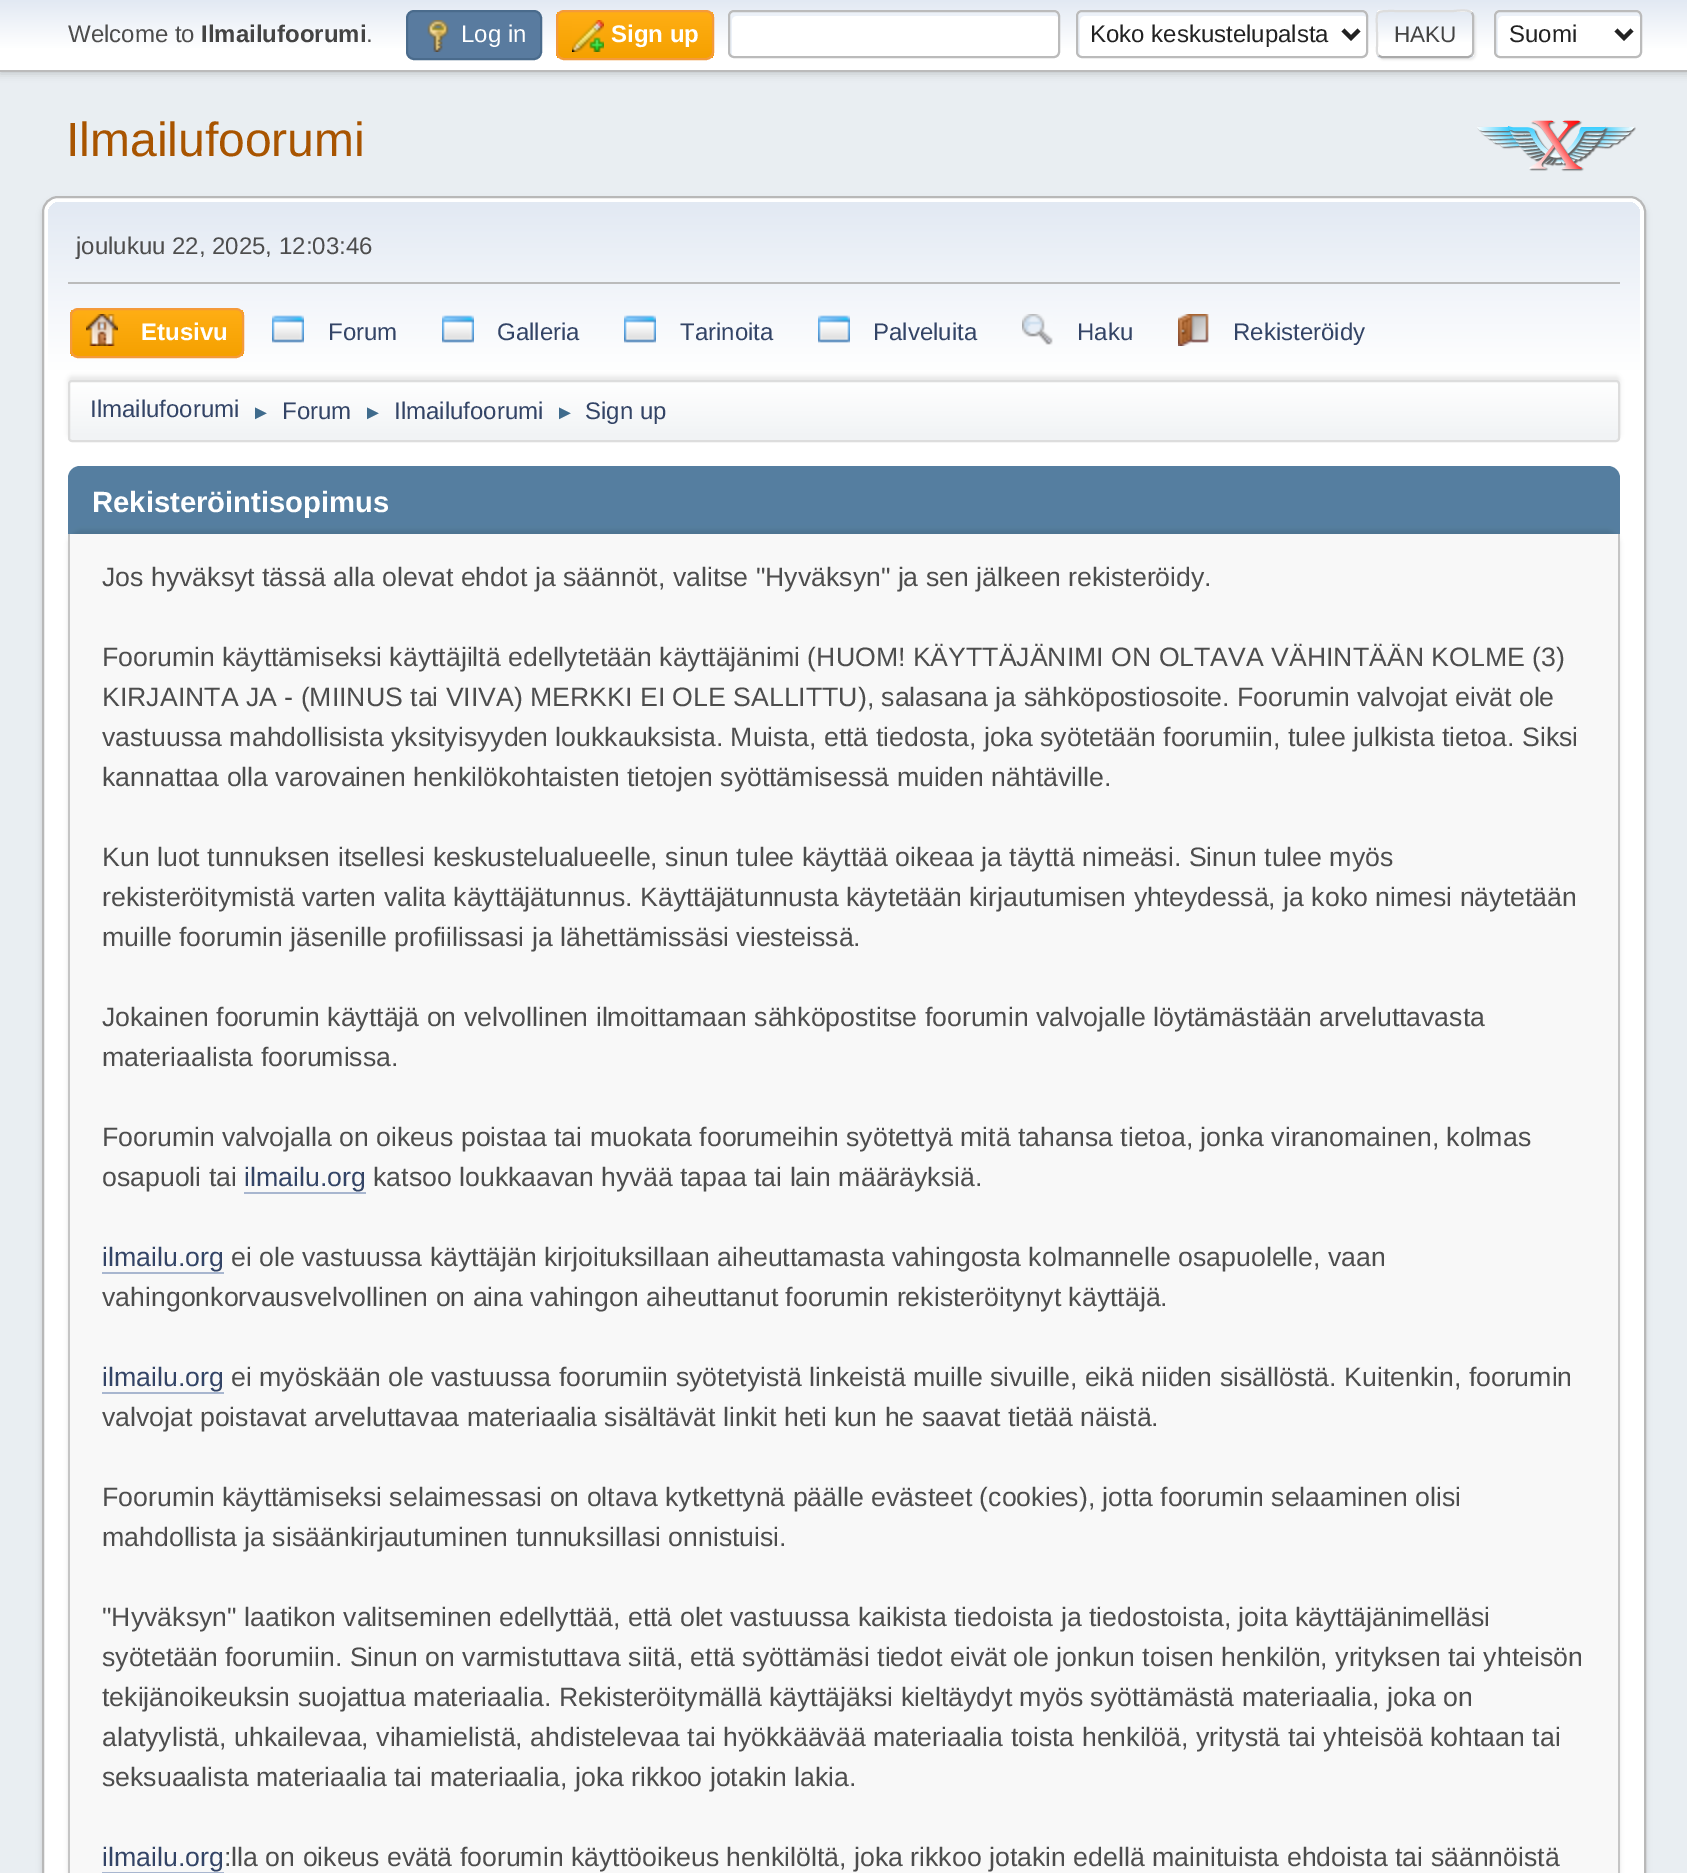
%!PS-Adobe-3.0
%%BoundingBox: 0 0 1687 1873
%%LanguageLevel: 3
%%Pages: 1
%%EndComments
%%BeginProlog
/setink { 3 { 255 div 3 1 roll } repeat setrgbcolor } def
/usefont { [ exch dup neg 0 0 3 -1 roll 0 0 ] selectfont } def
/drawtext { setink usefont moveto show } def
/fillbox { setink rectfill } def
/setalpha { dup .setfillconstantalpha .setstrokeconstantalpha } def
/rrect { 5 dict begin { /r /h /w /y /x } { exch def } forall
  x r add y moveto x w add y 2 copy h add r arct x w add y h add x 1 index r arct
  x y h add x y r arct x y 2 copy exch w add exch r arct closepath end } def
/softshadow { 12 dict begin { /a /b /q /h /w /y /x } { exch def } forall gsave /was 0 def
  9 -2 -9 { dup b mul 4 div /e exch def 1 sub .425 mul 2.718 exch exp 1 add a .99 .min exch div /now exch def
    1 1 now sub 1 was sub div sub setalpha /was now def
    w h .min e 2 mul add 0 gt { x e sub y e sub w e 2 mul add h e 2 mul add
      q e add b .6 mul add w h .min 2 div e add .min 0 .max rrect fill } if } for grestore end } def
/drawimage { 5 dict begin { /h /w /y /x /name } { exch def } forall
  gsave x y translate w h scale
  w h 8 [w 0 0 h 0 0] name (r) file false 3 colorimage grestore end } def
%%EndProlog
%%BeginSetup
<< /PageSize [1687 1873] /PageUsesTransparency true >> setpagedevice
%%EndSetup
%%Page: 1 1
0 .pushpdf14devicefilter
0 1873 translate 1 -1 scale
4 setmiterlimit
0 0 1687 1873 233 238 242 fillbox
0 0 0 setink
0 2 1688 72 0 4 0.16 softshadow
gsave 0 0 moveto 1687 0 lineto 1687 70 lineto 0 70 lineto closepath clip newpath
<< /ShadingType 2 /ColorSpace /DeviceRGB /Coords [844 0 844 70] /Extend [true true] /Function << /FunctionType 3 /Domain [0 1] /Functions [<< /FunctionType 2 /Domain [0 1] /C0 [0.886 0.914 0.953] /C1 [1 1 1] /N 1 >> << /FunctionType 2 /Domain [0 1] /C0 [1 1 1] /C1 [1 1 1] /N 1 >>] /Bounds [0.7] /Encode [0 1 0 1] >> >> shfill grestore
0 70 1687 2 187 187 187 fillbox
(Welcome to) 68 42 /LiberationSans-Regular 24 77 77 77 drawtext
(Ilmailufoorumi) 201 42 /LiberationSans-Bold 24 68 68 68 drawtext
(.) 366 42 /LiberationSans-Regular 24 77 77 77 drawtext
89 123 159 setink
407 11 134 48 7 rrect gsave fill grestore
74 107 140 setink
2 setlinewidth
stroke
(assets/img1.rgb) 427 20 22 32 drawimage
(Log in) 461 42 /LiberationSans-Regular 24 255 255 255 drawtext
gsave
556 10 158 50 8 rrect clip newpath
gsave 556 12 moveto 714 12 lineto 714 58 lineto 556 58 lineto closepath clip newpath
<< /ShadingType 2 /ColorSpace /DeviceRGB /Coords [635 12 635 58] /Extend [true true] /Function << /FunctionType 2 /Domain [0 1] /C0 [1 0.682 0.078] /C1 [0.961 0.631 0] /N 1 >> >> shfill grestore
grestore
244 154 58 setink
557 11 156 48 7 rrect stroke
(assets/img2.rgb) 572 20 32 32 drawimage
(Sign up) 611 42 /LiberationSans-Bold 24 255 255 255 drawtext
728 10 332 48 6 rrect fill
236 241 248 setink
736 16 moveto 1056 16 lineto 1058 17 lineto 1058 16 lineto 1058 14 1056 12 1054 12 curveto 734 12 lineto 732 12 730 14 730 16 curveto 730 52 lineto 730 53 731 55 732 55 curveto 732 20 lineto 732 18 734 16 736 16 curveto closepath fill
187 187 187 setink
729 11 330 46 5 rrect stroke
255 255 255 setink
1076 10 292 48 6 rrect fill
236 241 248 setink
1084 16 moveto 1364 16 lineto 1366 17 lineto 1366 16 lineto 1366 14 1364 12 1362 12 curveto 1082 12 lineto 1080 12 1078 14 1078 16 curveto 1078 52 lineto 1078 53 1079 55 1080 55 curveto 1080 20 lineto 1080 18 1082 16 1084 16 curveto closepath fill
187 187 187 setink
1077 11 290 46 5 rrect stroke
34 34 34 setink
4 setlinewidth
1343 30 moveto 1351 38 lineto 1359 30 lineto stroke
(Koko keskustelupalsta) 1090 42 /LiberationSans-Regular 24 34 34 34 drawtext
221 221 221 setink
1378 12 98 48 6 1 0.57 softshadow
gsave
1376 10 98 48 6 rrect clip newpath
gsave 1376 10 moveto 1474 10 lineto 1474 12 lineto 1376 12 lineto closepath clip newpath
<< /ShadingType 2 /ColorSpace /DeviceRGB /Coords [1425 -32 1425 12] /Extend [true true] /Function << /FunctionType 3 /Domain [0 1] /Functions [<< /FunctionType 2 /Domain [0 1] /C0 [0.886 0.914 0.953] /C1 [1 1 1] /N 1 >> << /FunctionType 2 /Domain [0 1] /C0 [1 1 1] /C1 [1 1 1] /N 1 >>] /Bounds [0.7] /Encode [0 1 0 1] >> >> shfill grestore
gsave 1376 12 moveto 1474 12 lineto 1474 56 lineto 1376 56 lineto closepath clip newpath
<< /ShadingType 2 /ColorSpace /DeviceRGB /Coords [1425 12 1425 56] /Extend [true true] /Function << /FunctionType 3 /Domain [0 1] /Functions [<< /FunctionType 2 /Domain [0 1] /C0 [0.886 0.914 0.953] /C1 [1 1 1] /N 1 >> << /FunctionType 2 /Domain [0 1] /C0 [1 1 1] /C1 [1 1 1] /N 1 >>] /Bounds [0.7] /Encode [0 1 0 1] >> >> shfill grestore
gsave 1376 56 moveto 1474 56 lineto 1474 58 lineto 1376 58 lineto closepath clip newpath
<< /ShadingType 2 /ColorSpace /DeviceRGB /Coords [1425 56 1425 100] /Extend [true true] /Function << /FunctionType 3 /Domain [0 1] /Functions [<< /FunctionType 2 /Domain [0 1] /C0 [0.886 0.914 0.953] /C1 [1 1 1] /N 1 >> << /FunctionType 2 /Domain [0 1] /C0 [1 1 1] /C1 [1 1 1] /N 1 >>] /Bounds [0.7] /Encode [0 1 0 1] >> >> shfill grestore
grestore
187 187 187 setink
2 setlinewidth
1471.5 12.5 moveto 1472.5 13.5 1473 14.5 1473 16 curveto 1473 52 lineto 1473 53.5 1472.5 54.5 1471.5 55.5 curveto stroke
170 170 170 setink
1471.5 55.5 moveto 1468.5 57 lineto 1381.5 57 lineto 1378.5 55.5 lineto stroke
221 221 221 setink
1378.5 55.5 moveto 1376 53 1377 48.5 1377 46 curveto 1377 34 lineto 1377 9.5 1372.5 11 1396.5 11 curveto 1453.5 11 lineto 1455.5 11 1468 9 1471.5 12.5 curveto stroke
(HAKU) 1394 42 /LiberationSans-Regular 22.5 68 68 68 drawtext
255 255 255 setink
1494 10 148 48 6 rrect fill
236 241 248 setink
1502 16 moveto 1638 16 lineto 1640 17 lineto 1640 16 lineto 1640 14 1638 12 1636 12 curveto 1500 12 lineto 1498 12 1496 14 1496 16 curveto 1496 52 lineto 1496 53 1497 55 1498 55 curveto 1498 20 lineto 1498 18 1500 16 1502 16 curveto closepath fill
187 187 187 setink
1495 11 146 46 5 rrect stroke
34 34 34 setink
4 setlinewidth
1616 30 moveto 1624 38 lineto 1632 30 lineto stroke
(Suomi) 1509 42 /LiberationSans-Regular 24 34 34 34 drawtext
(Ilmailufoorumi) 66 156 /LiberationSans-Regular 48 168 84 0 drawtext
(assets/img3.rgb) 1477 120 159 52 drawimage
0 0 0 setink
42 200 1604 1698 16 3 0.14 softshadow
255 255 255 setink
43 197 1602 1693 15 rrect gsave fill grestore
184 184 184 setink
2 setlinewidth
stroke
gsave 60 202 moveto 1628 202 lineto 1634.5 202 1640 207.5 1640 214 curveto 1640 446 lineto 48 446 lineto 48 214 lineto 48 207.5 53.5 202 60 202 curveto closepath clip newpath
<< /ShadingType 2 /ColorSpace /DeviceRGB /Coords [844 202 844 446] /Extend [true true] /Function << /FunctionType 3 /Domain [0 1] /Functions [<< /FunctionType 2 /Domain [0 1] /C0 [0.886 0.914 0.953] /C1 [1 1 1] /N 1 >> << /FunctionType 2 /Domain [0 1] /C0 [1 1 1] /C1 [1 1 1] /N 1 >>] /Bounds [0.7] /Encode [0 1 0 1] >> >> shfill grestore
68 282 1552 2 187 187 187 fillbox
(joulukuu 22, 2025, 12:03:46) 76 254 /LiberationSans-Regular 24 77 77 77 drawtext
gsave
70 308 174 50 8 rrect clip newpath
gsave 70 310 moveto 244 310 lineto 244 356 lineto 70 356 lineto closepath clip newpath
<< /ShadingType 2 /ColorSpace /DeviceRGB /Coords [157 310 157 356] /Extend [true true] /Function << /FunctionType 2 /Domain [0 1] /C0 [1 0.682 0.078] /C1 [0.961 0.631 0] /N 1 >> >> shfill grestore
grestore
244 154 58 setink
71 309 172 48 7 rrect stroke
(assets/img4.rgb) 86 314 32 32 drawimage
(Etusivu) 141 340 /LiberationSans-Bold 24 255 255 255 drawtext
(assets/img5.rgb) 272 315 32 28 drawimage
(Forum) 328 340 /LiberationSans-Regular 24 51 68 102 drawtext
(assets/img5.rgb) 442 315 32 28 drawimage
(Galleria) 497 340 /LiberationSans-Regular 24 51 68 102 drawtext
(assets/img5.rgb) 624 315 32 28 drawimage
(Tarinoita) 680 340 /LiberationSans-Regular 24 51 68 102 drawtext
(assets/img5.rgb) 818 315 32 28 drawimage
(Palveluita) 873 340 /LiberationSans-Regular 24 51 68 102 drawtext
(assets/img6.rgb) 1022 314 31 31 drawimage
(Haku) 1077 340 /LiberationSans-Regular 24 51 68 102 drawtext
(assets/img7.rgb) 1178 314 31 32 drawimage
(Rekisteröidy) 1233 340 /LiberationSans-Regular 24 51 68 102 drawtext
0 0 0 setink
68 376 1552 62 4 2 0.08 softshadow
gsave
68 380 1552 62 4 rrect clip newpath
gsave 68 382 moveto 1620 382 lineto 1620 440 lineto 68 440 lineto closepath clip newpath
<< /ShadingType 2 /ColorSpace /DeviceRGB /Coords [844 382 844 440] /Extend [true true] /Function << /FunctionType 3 /Domain [0 1] /Functions [<< /FunctionType 2 /Domain [0 1] /C0 [1 1 1] /C1 [0.945 0.953 0.961] /N 1 >> << /FunctionType 2 /Domain [0 1] /C0 [0.945 0.953 0.961] /C1 [0.945 0.953 0.961] /N 1 >>] /Bounds [0.95] /Encode [0 1 0 1] >> >> shfill grestore
grestore
221 221 221 setink
69 381 1550 60 3 rrect stroke
(Ilmailufoorumi) 90 417 /LiberationSans-Regular 24 51 68 102 drawtext
(►) 251 419 /LiberationSans-Regular 20 63 107 140 drawtext
(Forum) 282 419 /LiberationSans-Regular 24 51 68 102 drawtext
(►) 363 419 /LiberationSans-Regular 20 63 107 140 drawtext
(Ilmailufoorumi) 394 419 /LiberationSans-Regular 24 51 68 102 drawtext
(►) 555 419 /LiberationSans-Regular 20 63 107 140 drawtext
(Sign up) 585 419 /LiberationSans-Regular 24 51 68 102 drawtext
85 126 160 setink
80 466 moveto 1608 466 lineto 1614.5 466 1620 471.5 1620 478 curveto 1620 536 lineto 68 536 lineto 68 478 lineto 68 471.5 73.5 466 80 466 curveto closepath fill
(Rekisteröintisopimus) 92 512 /LiberationSans-Bold 29.25 255 255 255 drawtext
0 0 0 setink
68 530 1552 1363 14 2 0.1 softshadow
70 534 1548 1339 248 248 248 fillbox
197 197 197 setink
68 534 moveto 1620 534 lineto 1620 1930 lineto 1620 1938 1614 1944 1606 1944 curveto 82 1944 lineto 74 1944 68 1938 68 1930 curveto closepath 70 534 moveto 1618 534 lineto 1618 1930 lineto 1618 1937 1613 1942 1606 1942 curveto 82 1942 lineto 75 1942 70 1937 70 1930 curveto closepath eofill
(Jos hyväksyt tässä alla olevat ehdot ja säännöt, valitse "Hyväksyn" ja sen jälkeen rekisteröidy.) 102 586 /LiberationSans-Regular 26.67 77 77 77 drawtext
(Foorumin käyttämiseksi käyttäjiltä edellytetään käyttäjänimi \(HUOM! KÄYTTÄJÄNIMI ON OLTAVA VÄHINTÄÄN KOLME \(3\)) 102 666 /LiberationSans-Regular 26.67 77 77 77 drawtext
(KIRJAINTA JA - \(MIINUS tai VIIVA\) MERKKI EI OLE SALLITTU\), salasana ja sähköpostiosoite. Foorumin valvojat eivät ole) 102 706 /LiberationSans-Regular 26.67 77 77 77 drawtext
(vastuussa mahdollisista yksityisyyden loukkauksista. Muista, että tiedosta, joka syötetään foorumiin, tulee julkista tietoa. Siksi) 102 746 /LiberationSans-Regular 26.67 77 77 77 drawtext
(kannattaa olla varovainen henkilökohtaisten tietojen syöttämisessä muiden nähtäville.) 102 786 /LiberationSans-Regular 26.67 77 77 77 drawtext
(Kun luot tunnuksen itsellesi keskustelualueelle, sinun tulee käyttää oikeaa ja täyttä nimeäsi. Sinun tulee myös) 102 866 /LiberationSans-Regular 26.67 77 77 77 drawtext
(rekisteröitymistä varten valita käyttäjätunnus. Käyttäjätunnusta käytetään kirjautumisen yhteydessä, ja koko nimesi näytetään) 102 906 /LiberationSans-Regular 26.67 77 77 77 drawtext
(muille foorumin jäsenille profiilissasi ja lähettämissäsi viesteissä.) 102 946 /LiberationSans-Regular 26.67 77 77 77 drawtext
(Jokainen foorumin käyttäjä on velvollinen ilmoittamaan sähköpostitse foorumin valvojalle löytämästään arveluttavasta) 102 1026 /LiberationSans-Regular 26.67 77 77 77 drawtext
(materiaalista foorumissa.) 102 1066 /LiberationSans-Regular 26.67 77 77 77 drawtext
(Foorumin valvojalla on oikeus poistaa tai muokata foorumeihin syötettyä mitä tahansa tietoa, jonka viranomainen, kolmas) 102 1146 /LiberationSans-Regular 26.67 77 77 77 drawtext
(osapuoli tai) 102 1186 /LiberationSans-Regular 26.67 77 77 77 drawtext
(ilmailu.org) 244 1186 /LiberationSans-Regular 26.67 51 68 102 drawtext
244 1192 122 2 168 182 207 fillbox
(katsoo loukkaavan hyvää tapaa tai lain määräyksiä.) 373 1186 /LiberationSans-Regular 26.67 77 77 77 drawtext
(ilmailu.org) 102 1266 /LiberationSans-Regular 26.67 51 68 102 drawtext
102 1272 122 2 168 182 207 fillbox
(ei ole vastuussa käyttäjän kirjoituksillaan aiheuttamasta vahingosta kolmannelle osapuolelle, vaan) 231 1266 /LiberationSans-Regular 26.67 77 77 77 drawtext
(vahingonkorvausvelvollinen on aina vahingon aiheuttanut foorumin rekisteröitynyt käyttäjä.) 102 1306 /LiberationSans-Regular 26.67 77 77 77 drawtext
(ilmailu.org) 102 1386 /LiberationSans-Regular 26.67 51 68 102 drawtext
102 1392 122 2 168 182 207 fillbox
(ei myöskään ole vastuussa foorumiin syötetyistä linkeistä muille sivuille, eikä niiden sisällöstä. Kuitenkin, foorumin) 231 1386 /LiberationSans-Regular 26.67 77 77 77 drawtext
(valvojat poistavat arveluttavaa materiaalia sisältävät linkit heti kun he saavat tietää näistä.) 102 1426 /LiberationSans-Regular 26.67 77 77 77 drawtext
(Foorumin käyttämiseksi selaimessasi on oltava kytkettynä päälle evästeet \(cookies\), jotta foorumin selaaminen olisi) 102 1506 /LiberationSans-Regular 26.67 77 77 77 drawtext
(mahdollista ja sisäänkirjautuminen tunnuksillasi onnistuisi.) 102 1546 /LiberationSans-Regular 26.67 77 77 77 drawtext
("Hyväksyn" laatikon valitseminen edellyttää, että olet vastuussa kaikista tiedoista ja tiedostoista, joita käyttäjänimelläsi) 102 1626 /LiberationSans-Regular 26.67 77 77 77 drawtext
(syötetään foorumiin. Sinun on varmistuttava siitä, että syöttämäsi tiedot eivät ole jonkun toisen henkilön, yrityksen tai yhteisön) 102 1666 /LiberationSans-Regular 26.67 77 77 77 drawtext
(tekijänoikeuksin suojattua materiaalia. Rekisteröitymällä käyttäjäksi kieltäydyt myös syöttämästä materiaalia, joka on) 102 1706 /LiberationSans-Regular 26.67 77 77 77 drawtext
(alatyylistä, uhkailevaa, vihamielistä, ahdistelevaa tai hyökkäävää materiaalia toista henkilöä, yritystä tai yhteisöä kohtaan tai) 102 1746 /LiberationSans-Regular 26.67 77 77 77 drawtext
(seksuaalista materiaalia tai materiaalia, joka rikkoo jotakin lakia.) 102 1786 /LiberationSans-Regular 26.67 77 77 77 drawtext
(ilmailu.org) 102 1866 /LiberationSans-Regular 26.67 51 68 102 drawtext
102 1872 122 1 168 182 207 fillbox
(:lla on oikeus evätä foorumin käyttöoikeus henkilöltä, joka rikkoo jotakin edellä mainituista ehdoista tai säännöistä) 224 1866 /LiberationSans-Regular 26.67 77 77 77 drawtext
.poppdf14devicefilter showpage
%%EOF
